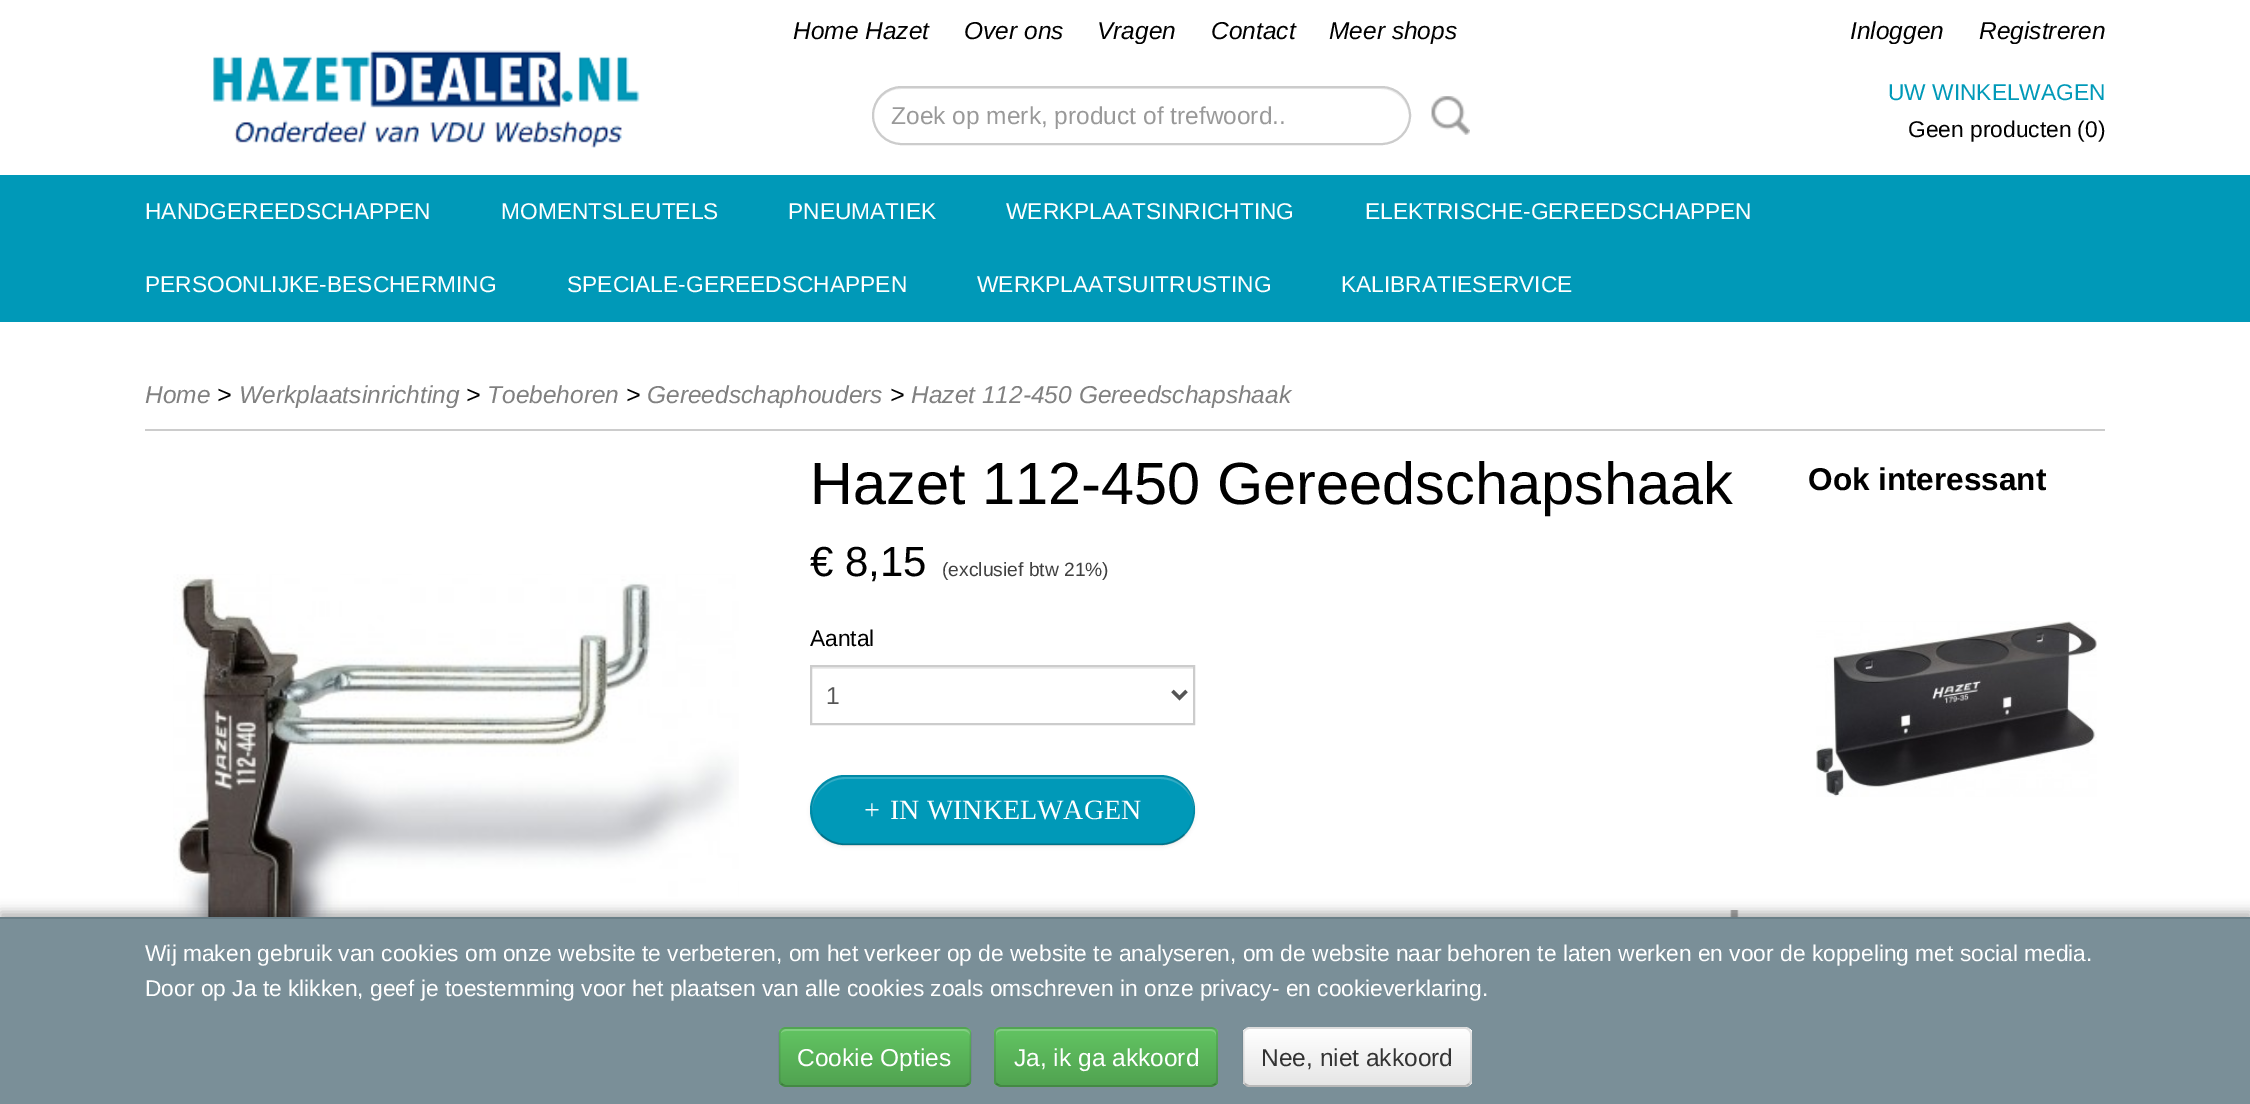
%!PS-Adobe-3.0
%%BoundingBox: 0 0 2250 1104
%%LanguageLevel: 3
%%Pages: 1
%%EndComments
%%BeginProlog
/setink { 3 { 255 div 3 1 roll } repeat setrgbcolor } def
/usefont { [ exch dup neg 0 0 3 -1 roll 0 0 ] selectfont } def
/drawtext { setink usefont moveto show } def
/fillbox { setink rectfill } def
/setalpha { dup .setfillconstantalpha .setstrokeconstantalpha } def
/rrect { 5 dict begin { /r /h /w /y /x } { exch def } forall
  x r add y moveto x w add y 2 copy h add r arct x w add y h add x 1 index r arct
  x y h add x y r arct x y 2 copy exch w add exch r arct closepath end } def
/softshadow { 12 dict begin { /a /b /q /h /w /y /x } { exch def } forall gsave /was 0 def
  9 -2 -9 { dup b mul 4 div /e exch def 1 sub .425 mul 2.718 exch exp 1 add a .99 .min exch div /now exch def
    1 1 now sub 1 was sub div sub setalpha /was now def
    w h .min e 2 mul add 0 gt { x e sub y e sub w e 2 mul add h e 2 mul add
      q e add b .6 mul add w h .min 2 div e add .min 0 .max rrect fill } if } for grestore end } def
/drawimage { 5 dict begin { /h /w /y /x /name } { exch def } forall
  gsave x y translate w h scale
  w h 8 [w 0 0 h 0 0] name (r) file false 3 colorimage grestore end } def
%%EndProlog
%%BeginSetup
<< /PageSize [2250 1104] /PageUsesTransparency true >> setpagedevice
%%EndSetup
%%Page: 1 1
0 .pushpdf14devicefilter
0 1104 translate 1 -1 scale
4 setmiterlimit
0 0 2250 1104 255 255 255 fillbox
(assets/img1.rgb) 213 50 427 98 drawimage
(Home Hazet) 793 39 /LiberationSans-Italic 24.5 0 0 0 drawtext
(Over ons) 964 39 /LiberationSans-Italic 24.5 0 0 0 drawtext
(Vragen) 1097 39 /LiberationSans-Italic 24.5 0 0 0 drawtext
(Contact) 1211 39 /LiberationSans-Italic 24.5 0 0 0 drawtext
(Meer shops) 1329 39 /LiberationSans-Italic 24.5 0 0 0 drawtext
(Inloggen) 1850 39 /LiberationSans-Italic 24.5 0 0 0 drawtext
(Registreren) 1979 39 /LiberationSans-Italic 24.5 0 0 0 drawtext
(UW WINKELWAGEN) 1888 100 /LiberationSans-Regular 22.75 0 153 184 drawtext
(Geen producten \(0\)) 1908 137 /LiberationSans-Regular 22.75 0 0 0 drawtext
236 236 236 setink
901 89 moveto 1381 89 lineto 1396 89 1409 102 1409 117 curveto 1409 101 1396 88 1381 88 curveto 901 88 lineto 886 88 873 101 873 117 curveto 873 102 886 89 901 89 curveto closepath fill
204 204 204 setink
2 setlinewidth
873 87 537 57 28.5 rrect stroke
(Zoek op merk, product of trefwoord..) 891 124 /LiberationSans-Regular 24.5 153 153 153 drawtext
(assets/img2.rgb) 1431 96 39 39 drawimage
0 175 2250 147 0 153 184 fillbox
(HANDGEREEDSCHAPPEN) 145 219 /LiberationSans-Regular 22.75 255 255 255 drawtext
(MOMENTSLEUTELS) 501 219 /LiberationSans-Regular 22.75 255 255 255 drawtext
(PNEUMATIEK) 788 219 /LiberationSans-Regular 22.75 255 255 255 drawtext
(WERKPLAATSINRICHTING) 1006 219 /LiberationSans-Regular 22.75 255 255 255 drawtext
(ELEKTRISCHE-GEREEDSCHAPPEN) 1365 219 /LiberationSans-Regular 22.75 255 255 255 drawtext
(PERSOONLIJKE-BESCHERMING) 145 292 /LiberationSans-Regular 22.75 255 255 255 drawtext
(SPECIALE-GEREEDSCHAPPEN) 567 292 /LiberationSans-Regular 22.75 255 255 255 drawtext
(WERKPLAATSUITRUSTING) 977 292 /LiberationSans-Regular 22.75 255 255 255 drawtext
(KALIBRATIESERVICE) 1341 292 /LiberationSans-Regular 22.75 255 255 255 drawtext
145 429 1960 2 204 204 204 fillbox
(Home) 145 403 /LiberationSans-Italic 24.5 128 128 128 drawtext
(>) 217 403 /LiberationSans-Italic 24.5 0 0 0 drawtext
(Werkplaatsinrichting) 239 403 /LiberationSans-Italic 24.5 128 128 128 drawtext
(>) 466 403 /LiberationSans-Italic 24.5 0 0 0 drawtext
(Toebehoren) 487 403 /LiberationSans-Italic 24.5 128 128 128 drawtext
(>) 626 403 /LiberationSans-Italic 24.5 0 0 0 drawtext
(Gereedschaphouders) 647 403 /LiberationSans-Italic 24.5 128 128 128 drawtext
(>) 890 403 /LiberationSans-Italic 24.5 0 0 0 drawtext
(Hazet 112-450 Gereedschapshaak) 911 403 /LiberationSans-Italic 24.5 128 128 128 drawtext
(assets/img3.rgb) 173 574 566 343 drawimage
(Hazet 112-450 Gereedschapshaak) 810 504 /LiberationSans-Regular 59.5 0 0 0 drawtext
(€ 8,15) 810 576 /LiberationSans-Regular 42 0 0 0 drawtext
(\(exclusief btw 21%\)) 942 576 /LiberationSans-Regular 19.25 64 64 64 drawtext
(Aantal) 810 646 /LiberationSans-Regular 22.75 0 0 0 drawtext
812 667 382 2 236 236 236 fillbox
204 204 204 setink
811 666 383 58 rectstroke
85 85 85 setink
3.5 setlinewidth
1172.5 691 moveto 1179.5 698 lineto 1186.5 691 lineto stroke
(1) 826 704 /LiberationSans-Regular 24.5 85 85 85 drawtext
0 0 0 setink
810 777 385 70 35 2 0.05 softshadow
0 153 184 setink
810 775 385 70 35 rrect fill
51 173 198 setink
845 779 moveto 1160 779 lineto 1179 779 1194 794 1194 811 curveto 1194 810 lineto 1194 792 1179 777 1160 777 curveto 846 777 lineto 827 777 812 792 812 810 curveto 812 811 lineto 812 794 827 779 845 779 curveto closepath fill
0.25 setalpha
0 0 0 setink
1.8 setlinewidth
1184.5 834.5 moveto 1178 841 1169.5 844.5 1160 844.5 curveto 845 844.5 lineto 836 844.5 827.5 841 821 834.5 curveto stroke
0.1 setalpha
821 834.5 moveto 813 826.5 809.5 814.5 812 803.5 curveto 815 788 829 776 845 776 curveto 1160 776 lineto 1176.5 776 1190.5 788 1193.5 803.5 curveto 1196 814.5 1192.5 826.5 1184.5 834.5 curveto stroke
1 setalpha
(+) 864 819 /LiberationSerif-Regular 28 255 255 255 drawtext
(IN WINKELWAGEN) 890 819 /LiberationSerif-Regular 28 255 255 255 drawtext
(assets/img4.rgb) 1730 910 9 7 drawimage
(Ook interessant) 1808 490 /LiberationSans-Bold 31.5 0 0 0 drawtext
(assets/img5.rgb) 1816 621 281 176 drawimage
0 912 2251 187 0 6 0.3 softshadow
0 919 2250 185 122 143 152 fillbox
0 917 2250 2 105 126 135 fillbox
(Wij maken gebruik van cookies om onze website te verbeteren, om het verkeer op de website te analyseren, om de website naar behoren te laten werken en voor de koppeling met social media.) 145 961 /LiberationSans-Regular 22.75 255 255 255 drawtext
(Door op Ja te klikken, geef je toestemming voor het plaatsen van alle cookies zoals omschreven in onze privacy- en cookieverklaring.) 145 996 /LiberationSans-Regular 22.75 255 255 255 drawtext
91 183 91 setink
779 1027 192 60 7 rrect fill
gsave
779 1027 192 60 7 rrect clip newpath
gsave 779 1029 moveto 971 1029 lineto 971 1085 lineto 779 1085 lineto closepath clip newpath
<< /ShadingType 2 /ColorSpace /DeviceRGB /Coords [875 1029 875 1085] /Extend [true true] /Function << /FunctionType 2 /Domain [0 1] /C0 [0.384 0.769 0.384] /C1 [0.318 0.639 0.318] /N 1 >> >> shfill grestore
grestore
0.2 setalpha
255 255 255 setink
786 1031 moveto 964 1031 lineto 967 1031 970 1033 970 1036 curveto 970 1034 lineto 970 1031 968 1029 965 1029 curveto 786 1029 lineto 784 1029 781 1031 781 1033 curveto 782 1032 784 1031 786 1031 curveto closepath fill
0.25 setalpha
0 0 0 setink
968.5 1084 moveto 967.5 1085 966 1086 964 1086 curveto 786 1086 lineto 784 1086 782.5 1085 781.5 1084 curveto stroke
0.1 setalpha
781.5 1084 moveto 780.5 1083 779.5 1081.5 779.5 1080 curveto 779.5 1034 lineto 779.5 1032.5 780.5 1031 781.5 1030 curveto 782.5 1029 784 1028 786 1028 curveto 964 1028 lineto 966 1028 967.5 1029 968.5 1030 curveto 969.5 1031 970.5 1032.5 970.5 1034 curveto 970.5 1080 lineto 970.5 1081.5 969.5 1083 968.5 1084 curveto stroke
1 setalpha
(Cookie Opties) 797 1066 /LiberationSans-Regular 24.5 255 255 255 drawtext
91 183 91 setink
994 1027 224 60 7 rrect fill
gsave
994 1027 224 60 7 rrect clip newpath
gsave 994 1029 moveto 1218 1029 lineto 1218 1085 lineto 994 1085 lineto closepath clip newpath
<< /ShadingType 2 /ColorSpace /DeviceRGB /Coords [1106 1029 1106 1085] /Extend [true true] /Function << /FunctionType 2 /Domain [0 1] /C0 [0.384 0.769 0.384] /C1 [0.318 0.639 0.318] /N 1 >> >> shfill grestore
grestore
0.2 setalpha
255 255 255 setink
1001 1031 moveto 1211 1031 lineto 1214 1031 1216 1033 1216 1036 curveto 1216 1034 lineto 1216 1031 1214 1029 1211 1029 curveto 1001 1029 lineto 998 1029 996 1031 996 1034 curveto 996 1036 lineto 996 1033 998 1031 1001 1031 curveto closepath fill
0.25 setalpha
0 0 0 setink
1215.5 1084 moveto 1214 1085 1212.5 1086 1211 1086 curveto 1001 1086 lineto 999.5 1086 998 1085 996.5 1084 curveto stroke
0.1 setalpha
996.5 1084 moveto 995.5 1083 995 1081.5 995 1080 curveto 995 1034 lineto 995 1032.5 995.5 1031 996.5 1030 curveto 998 1029 999.5 1028 1001 1028 curveto 1211 1028 lineto 1212.5 1028 1214 1029 1215.5 1030 curveto 1216.5 1031 1217 1032.5 1217 1034 curveto 1217 1080 lineto 1217 1081.5 1216.5 1083 1215.5 1084 curveto stroke
1 setalpha
(Ja, ik ga akkoord) 1014 1066 /LiberationSans-Regular 24.5 255 255 255 drawtext
245 245 245 setink
1243 1027 229 60 7 rrect fill
gsave
1243 1027 229 60 7 rrect clip newpath
gsave 1243 1029 moveto 1472 1029 lineto 1472 1085 lineto 1243 1085 lineto closepath clip newpath
<< /ShadingType 2 /ColorSpace /DeviceRGB /Coords [1357 1029 1357 1085] /Extend [true true] /Function << /FunctionType 2 /Domain [0 1] /C0 [1 1 1] /C1 [0.902 0.902 0.902] /N 1 >> >> shfill grestore
grestore
0.25 setalpha
0 0 0 setink
1469 1084 moveto 1468 1085 1466.5 1086 1465 1086 curveto 1249.5 1086 lineto 1248 1086 1246.5 1085 1245 1084 curveto stroke
0.1 setalpha
1245 1084 moveto 1244 1083 1243.5 1081.5 1243.5 1080 curveto 1243.5 1034 lineto 1243.5 1032.5 1244 1031 1245 1030 curveto 1246.5 1029 1248 1028 1249.5 1028 curveto 1465 1028 lineto 1466.5 1028 1468 1029 1469 1030 curveto 1470 1031 1471 1032.5 1471 1034 curveto 1471 1080 lineto 1471 1081.5 1470 1083 1469 1084 curveto stroke
1 setalpha
(Nee, niet akkoord) 1261 1066 /LiberationSans-Regular 24.5 51 51 51 drawtext
.poppdf14devicefilter showpage
%%EOF
